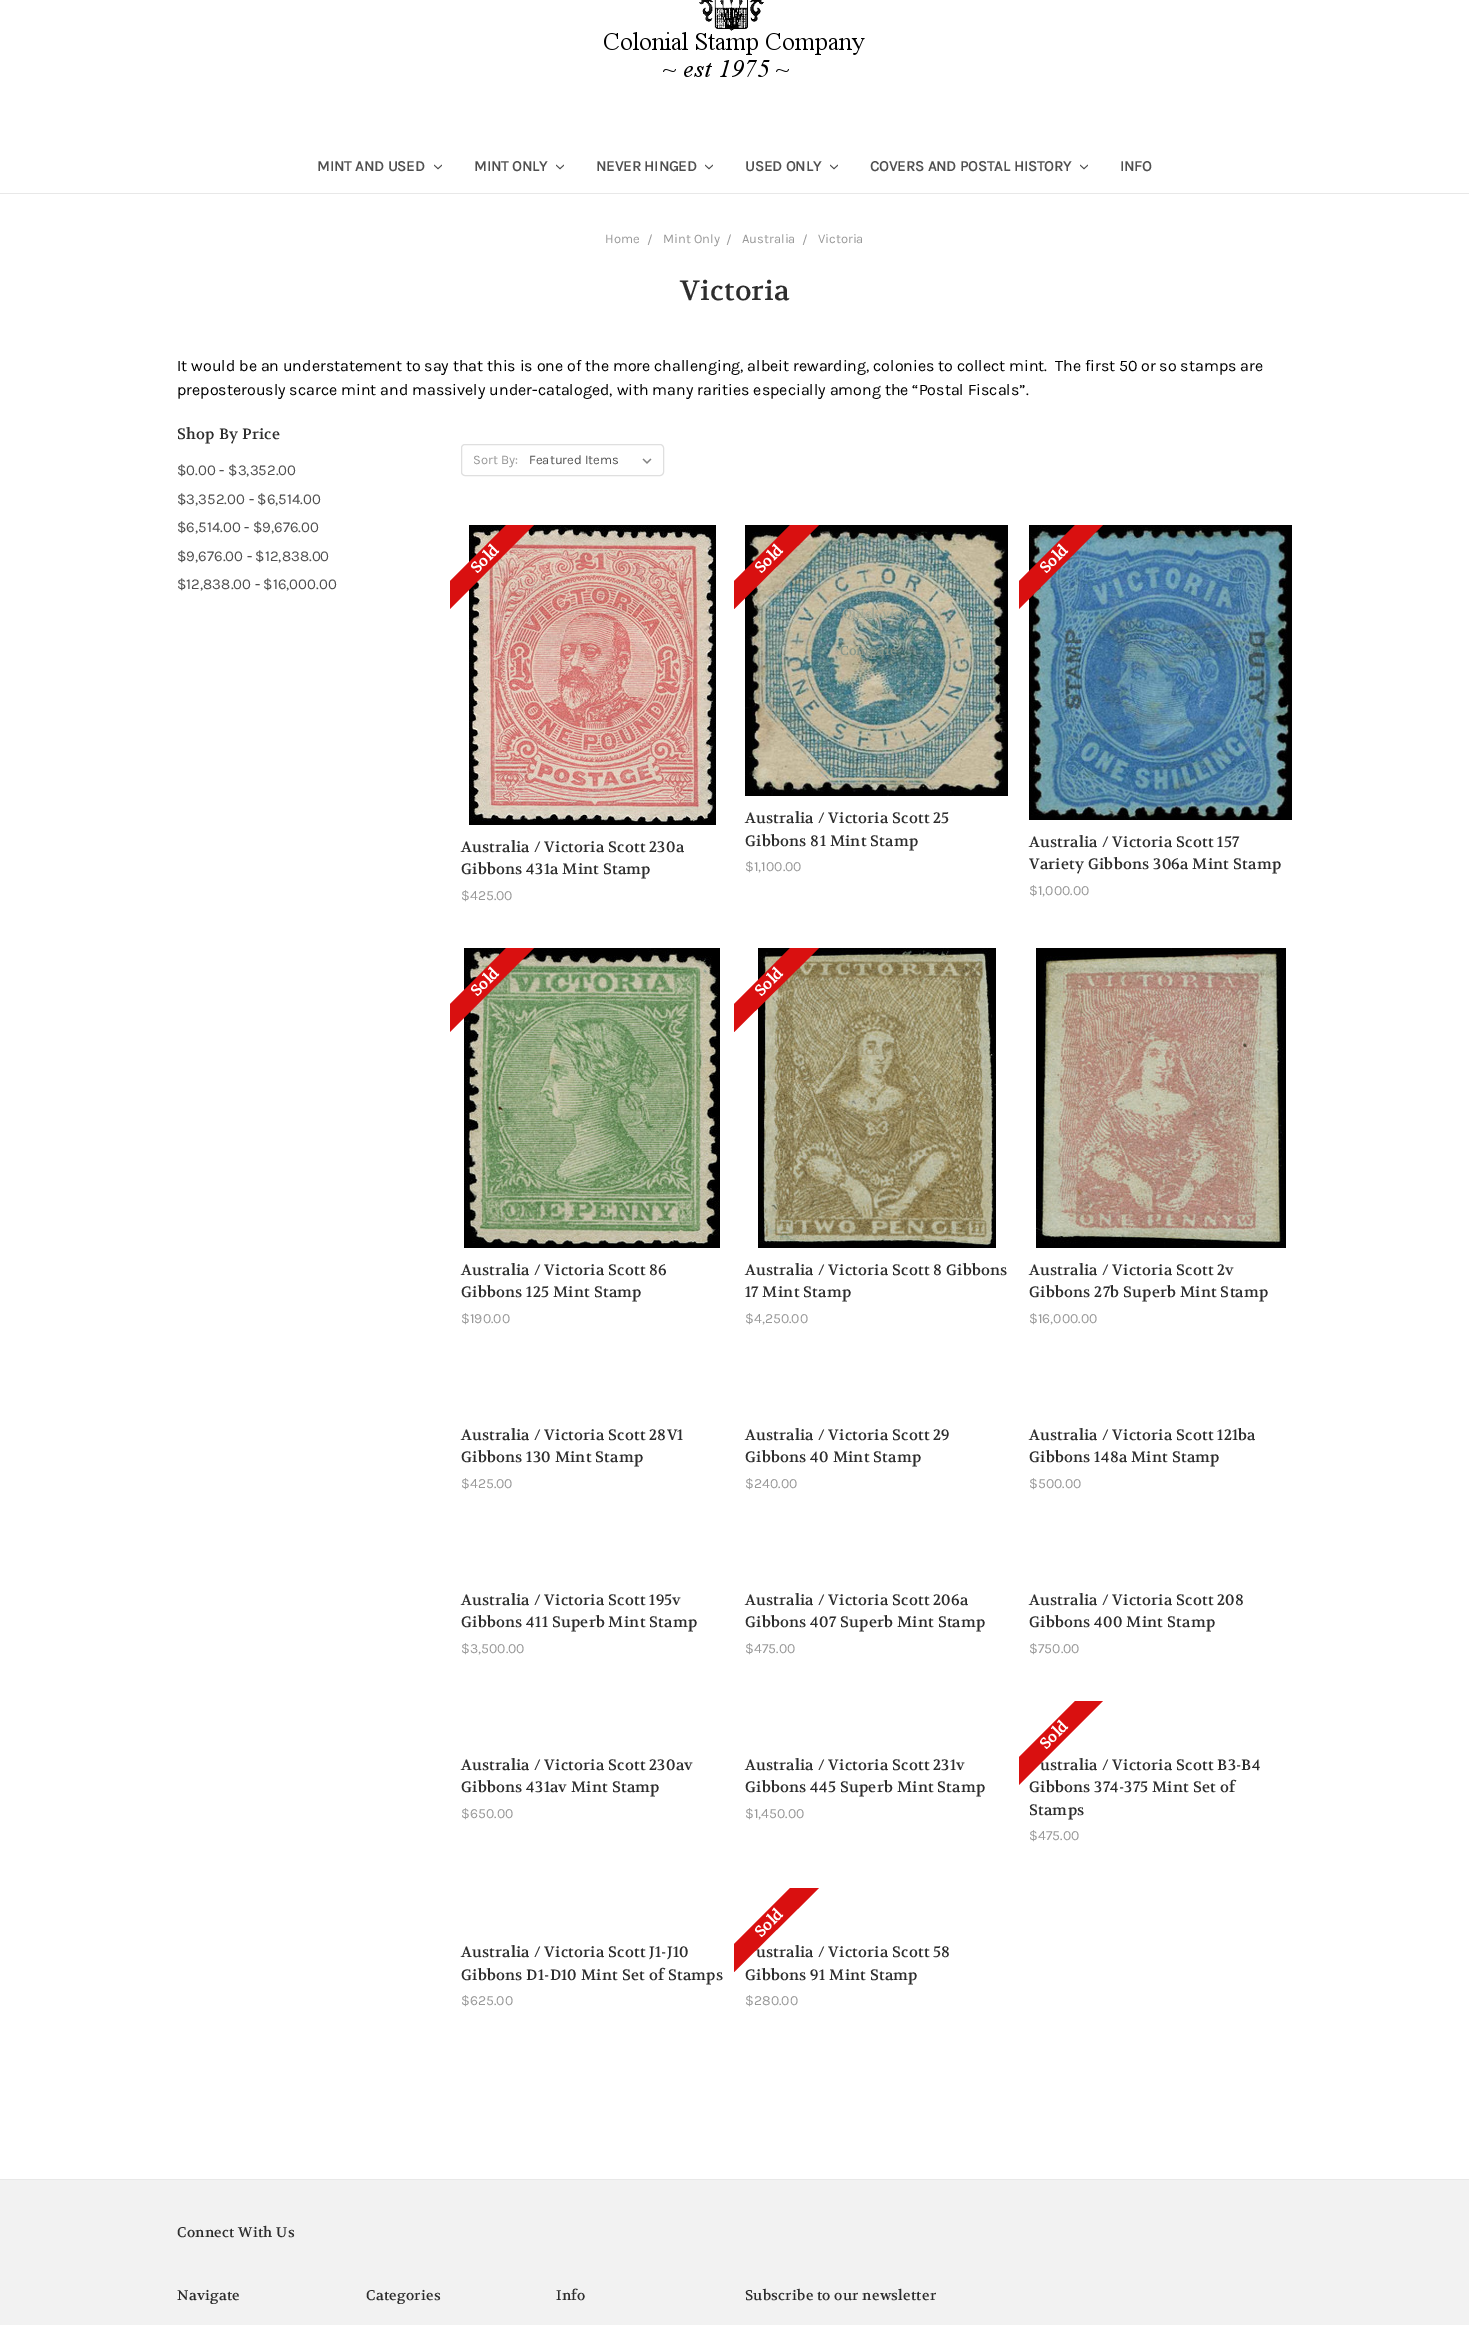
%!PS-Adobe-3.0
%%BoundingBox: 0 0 1469 2325
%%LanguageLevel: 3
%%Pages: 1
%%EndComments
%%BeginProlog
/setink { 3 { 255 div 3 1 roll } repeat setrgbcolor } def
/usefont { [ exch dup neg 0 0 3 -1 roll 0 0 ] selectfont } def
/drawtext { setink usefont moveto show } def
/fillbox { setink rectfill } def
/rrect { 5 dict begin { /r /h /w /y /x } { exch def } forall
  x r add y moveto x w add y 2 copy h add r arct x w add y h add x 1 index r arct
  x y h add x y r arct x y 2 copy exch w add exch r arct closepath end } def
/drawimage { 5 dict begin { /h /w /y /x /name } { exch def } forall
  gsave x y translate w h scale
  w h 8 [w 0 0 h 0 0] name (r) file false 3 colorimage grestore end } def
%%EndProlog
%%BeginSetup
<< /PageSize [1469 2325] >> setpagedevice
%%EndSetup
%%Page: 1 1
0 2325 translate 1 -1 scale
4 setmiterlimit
0 0 1469 2325 255 255 255 fillbox
0 193 1469 1 232 232 232 fillbox
(assets/img1.rgb) 604 0 261 77 drawimage
(MINT AND USED) 317 171 /Karla-Bold 15 79 79 79 drawtext
(assets/img2.rgb) 434 164 8 6 drawimage
(MINT ONLY) 474 171 /Karla-Bold 15 79 79 79 drawtext
(assets/img2.rgb) 556 164 8 6 drawimage
(NEVER HINGED) 596 171 /Karla-Bold 15 79 79 79 drawtext
(assets/img2.rgb) 705 164 8 6 drawimage
(USED ONLY) 745 171 /Karla-Bold 15 79 79 79 drawtext
(assets/img2.rgb) 830 164 8 6 drawimage
(COVERS AND POSTAL HISTORY) 870 171 /Karla-Bold 15 79 79 79 drawtext
(assets/img2.rgb) 1080 164 8 6 drawimage
(INFO) 1120 171 /Karla-Bold 15 79 79 79 drawtext
(Home) 605 243 /Karla-Regular 13 152 152 152 drawtext
(/) 647 244 /Karla-Regular 13 152 152 152 drawtext
(Mint Only) 663 243 /Karla-Regular 13 152 152 152 drawtext
(/) 726 244 /Karla-Regular 13 152 152 152 drawtext
(Australia) 742 243 /Karla-Regular 13 152 152 152 drawtext
(/) 802 244 /Karla-Regular 13 152 152 152 drawtext
(Victoria) 818 243 /Karla-Regular 13 152 152 152 drawtext
/Volkhov-Regular 28 usefont
45 45 45 setink
680 300 moveto 0.25 0 (Victoria) ashow
(It would be an understatement to say that this is one of the more challenging, albeit rewarding, colonies to collect mint.  The first 50 or so stamps are) 177 371 /Karla-Regular 16 0 0 0 drawtext
(preposterously scarce mint and massively under-cataloged, with many rarities especially among the “Postal Fiscals”.) 177 395 /Karla-Regular 16 0 0 0 drawtext
/Volkhov-Regular 15 usefont
45 45 45 setink
177 439 moveto 0.25 0 (Shop By Price) ashow
($0.00 - $3,352.00) 177 475 /Karla-Regular 15 79 79 79 drawtext
($3,352.00 - $6,514.00) 177 504 /Karla-Regular 15 79 79 79 drawtext
($6,514.00 - $9,676.00) 177 532 /Karla-Regular 15 79 79 79 drawtext
($9,676.00 - $12,838.00) 177 561 /Karla-Regular 15 79 79 79 drawtext
($12,838.00 - $16,000.00) 177 589 /Karla-Regular 15 79 79 79 drawtext
223 223 223 setink
461.5 444.5 202 31 3.5 rrect stroke
(Sort By:) 473 464 /Karla-Regular 13 152 152 152 drawtext
(assets/img3.rgb) 642 458 10 6 drawimage
(Featured Items) 529 464 /Karla-Regular 13 79 79 79 drawtext
(assets/img4.rgb) 469 525 247 300 drawimage
gsave
450 525 284 423 rectclip
217 16 16 setink
436 595 moveto 520 511 lineto 534 525 lineto 450 609 lineto closepath fill
grestore
/Volkhov-Bold 15 usefont
255 255 255 setink
gsave 477 574 translate -45 rotate 0 0 moveto (Sold) show grestore
/Volkhov-Regular 15 usefont
45 45 45 setink
461 852 moveto 0.25 0 (Australia / Victoria Scott 230a) ashow
461 874 moveto 0.25 0 (Gibbons 431a Mint Stamp) ashow
($425.00) 461 900 /Karla-Regular 14 152 152 152 drawtext
(assets/img5.rgb) 745 525 263 271 drawimage
gsave
734 525 285 394 rectclip
217 16 16 setink
720 595 moveto 804 511 lineto 819 525 lineto 734 609 lineto closepath fill
grestore
/Volkhov-Bold 15 usefont
255 255 255 setink
gsave 761 574 translate -45 rotate 0 0 moveto (Sold) show grestore
(Quick view) 842 618 /Volkhov-Regular 13 160 166 150 drawtext
(Compare) 840 655 /Volkhov-Regular 13 135 150 138 drawtext
/Volkhov-Regular 15 usefont
45 45 45 setink
745 823 moveto 0.25 0 (Australia / Victoria Scott 25) ashow
745 846 moveto 0.25 0 (Gibbons 81 Mint Stamp) ashow
($1,100.00) 745 871 /Karla-Regular 14 152 152 152 drawtext
(assets/img6.rgb) 1029 525 263 295 drawimage
gsave
1019 525 284 418 rectclip
217 16 16 setink
1005 595 moveto 1089 511 lineto 1103 525 lineto 1019 609 lineto closepath fill
grestore
/Volkhov-Bold 15 usefont
255 255 255 setink
gsave 1046 574 translate -45 rotate 0 0 moveto (Sold) show grestore
/Volkhov-Regular 15 usefont
45 45 45 setink
1029 847 moveto 0.25 0 (Australia / Victoria Scott 157) ashow
1029 869 moveto 0.25 0 (Variety Gibbons 306a Mint Stamp) ashow
($1,000.00) 1029 895 /Karla-Regular 14 152 152 152 drawtext
(assets/img7.rgb) 464 948 256 300 drawimage
gsave
450 948 284 423 rectclip
217 16 16 setink
436 1018 moveto 520 934 lineto 534 948 lineto 450 1032 lineto closepath fill
grestore
/Volkhov-Bold 15 usefont
255 255 255 setink
gsave 477 997 translate -45 rotate 0 0 moveto (Sold) show grestore
/Volkhov-Regular 15 usefont
45 45 45 setink
461 1275 moveto 0.25 0 (Australia / Victoria Scott 86) ashow
461 1297 moveto 0.25 0 (Gibbons 125 Mint Stamp) ashow
($190.00) 461 1323 /Karla-Regular 14 152 152 152 drawtext
(assets/img8.rgb) 758 948 238 300 drawimage
gsave
734 948 285 423 rectclip
217 16 16 setink
720 1018 moveto 804 934 lineto 819 948 lineto 734 1032 lineto closepath fill
grestore
/Volkhov-Bold 15 usefont
255 255 255 setink
gsave 761 997 translate -45 rotate 0 0 moveto (Sold) show grestore
(Quick view) 842 1055 /Volkhov-Regular 13 163 154 118 drawtext
/Volkhov-Regular 15 usefont
45 45 45 setink
745 1275 moveto 0.25 0 (Australia / Victoria Scott 8 Gibbons) ashow
745 1297 moveto 0.25 0 (17 Mint Stamp) ashow
($4,250.00) 745 1323 /Karla-Regular 14 152 152 152 drawtext
(assets/img9.rgb) 1036 948 250 300 drawimage
/Volkhov-Regular 15 usefont
45 45 45 setink
1029 1275 moveto 0.25 0 (Australia / Victoria Scott 2v) ashow
1029 1297 moveto 0.25 0 (Gibbons 27b Superb Mint Stamp) ashow
($16,000.00) 1029 1323 /Karla-Regular 14 152 152 152 drawtext
/Volkhov-Regular 15 usefont
45 45 45 setink
461 1440 moveto 0.25 0 (Australia / Victoria Scott 28V1) ashow
461 1462 moveto 0.25 0 (Gibbons 130 Mint Stamp) ashow
($425.00) 461 1488 /Karla-Regular 14 152 152 152 drawtext
/Volkhov-Regular 15 usefont
45 45 45 setink
745 1440 moveto 0.25 0 (Australia / Victoria Scott 29) ashow
745 1462 moveto 0.25 0 (Gibbons 40 Mint Stamp) ashow
($240.00) 745 1488 /Karla-Regular 14 152 152 152 drawtext
/Volkhov-Regular 15 usefont
45 45 45 setink
1029 1440 moveto 0.25 0 (Australia / Victoria Scott 121ba) ashow
1029 1462 moveto 0.25 0 (Gibbons 148a Mint Stamp) ashow
($500.00) 1029 1488 /Karla-Regular 14 152 152 152 drawtext
/Volkhov-Regular 15 usefont
45 45 45 setink
461 1605 moveto 0.25 0 (Australia / Victoria Scott 195v) ashow
461 1627 moveto 0.25 0 (Gibbons 411 Superb Mint Stamp) ashow
($3,500.00) 461 1653 /Karla-Regular 14 152 152 152 drawtext
/Volkhov-Regular 15 usefont
45 45 45 setink
745 1605 moveto 0.25 0 (Australia / Victoria Scott 206a) ashow
745 1627 moveto 0.25 0 (Gibbons 407 Superb Mint Stamp) ashow
($475.00) 745 1653 /Karla-Regular 14 152 152 152 drawtext
/Volkhov-Regular 15 usefont
45 45 45 setink
1029 1605 moveto 0.25 0 (Australia / Victoria Scott 208) ashow
1029 1627 moveto 0.25 0 (Gibbons 400 Mint Stamp) ashow
($750.00) 1029 1653 /Karla-Regular 14 152 152 152 drawtext
/Volkhov-Regular 15 usefont
45 45 45 setink
461 1770 moveto 0.25 0 (Australia / Victoria Scott 230av) ashow
461 1792 moveto 0.25 0 (Gibbons 431av Mint Stamp) ashow
($650.00) 461 1818 /Karla-Regular 14 152 152 152 drawtext
/Volkhov-Regular 15 usefont
45 45 45 setink
745 1770 moveto 0.25 0 (Australia / Victoria Scott 231v) ashow
745 1792 moveto 0.25 0 (Gibbons 445 Superb Mint Stamp) ashow
($1,450.00) 745 1818 /Karla-Regular 14 152 152 152 drawtext
/Volkhov-Regular 15 usefont
45 45 45 setink
1040 1770 moveto 0.25 0 (ustralia / Victoria Scott B3-B4) ashow
1029 1792 moveto 0.25 0 (Gibbons 374-375 Mint Set of) ashow
gsave
1019 1701 284 187 rectclip
217 16 16 setink
1005 1771 moveto 1089 1687 lineto 1103 1701 lineto 1019 1785 lineto closepath fill
grestore
/Volkhov-Bold 15 usefont
255 255 255 setink
gsave 1046 1750 translate -45 rotate 0 0 moveto (Sold) show grestore
/Volkhov-Regular 15 usefont
45 45 45 setink
1029 1815 moveto 0.25 0 (Stamps) ashow
($475.00) 1029 1840 /Karla-Regular 14 152 152 152 drawtext
/Volkhov-Regular 15 usefont
45 45 45 setink
461 1957 moveto 0.25 0 (Australia / Victoria Scott J1-J10) ashow
461 1980 moveto 0.25 0 (Gibbons D1-D10 Mint Set of Stamps) ashow
($625.00) 461 2005 /Karla-Regular 14 152 152 152 drawtext
/Volkhov-Regular 15 usefont
45 45 45 setink
756 1957 moveto 0.25 0 (ustralia / Victoria Scott 58) ashow
745 1980 moveto 0.25 0 (Gibbons 91 Mint Stamp) ashow
gsave
734 1888 285 165 rectclip
217 16 16 setink
720 1958 moveto 804 1874 lineto 819 1888 lineto 734 1972 lineto closepath fill
grestore
/Volkhov-Bold 15 usefont
255 255 255 setink
gsave 761 1938 translate -45 rotate 0 0 moveto (Sold) show grestore
($280.00) 745 2005 /Karla-Regular 14 152 152 152 drawtext
0 2180 1469 145 242 242 242 fillbox
0 2179 1469 1 232 232 232 fillbox
/Volkhov-Regular 14 usefont
45 45 45 setink
177 2237 moveto 0.25 0 (Connect With Us) ashow
177 2300 moveto 0.25 0 (Navigate) ashow
366 2300 moveto 0.25 0 (Categories) ashow
556 2300 moveto 0.25 0 (Info) ashow
745 2300 moveto 0.25 0 (Subscribe to our newsletter) ashow
showpage
%%EOF
